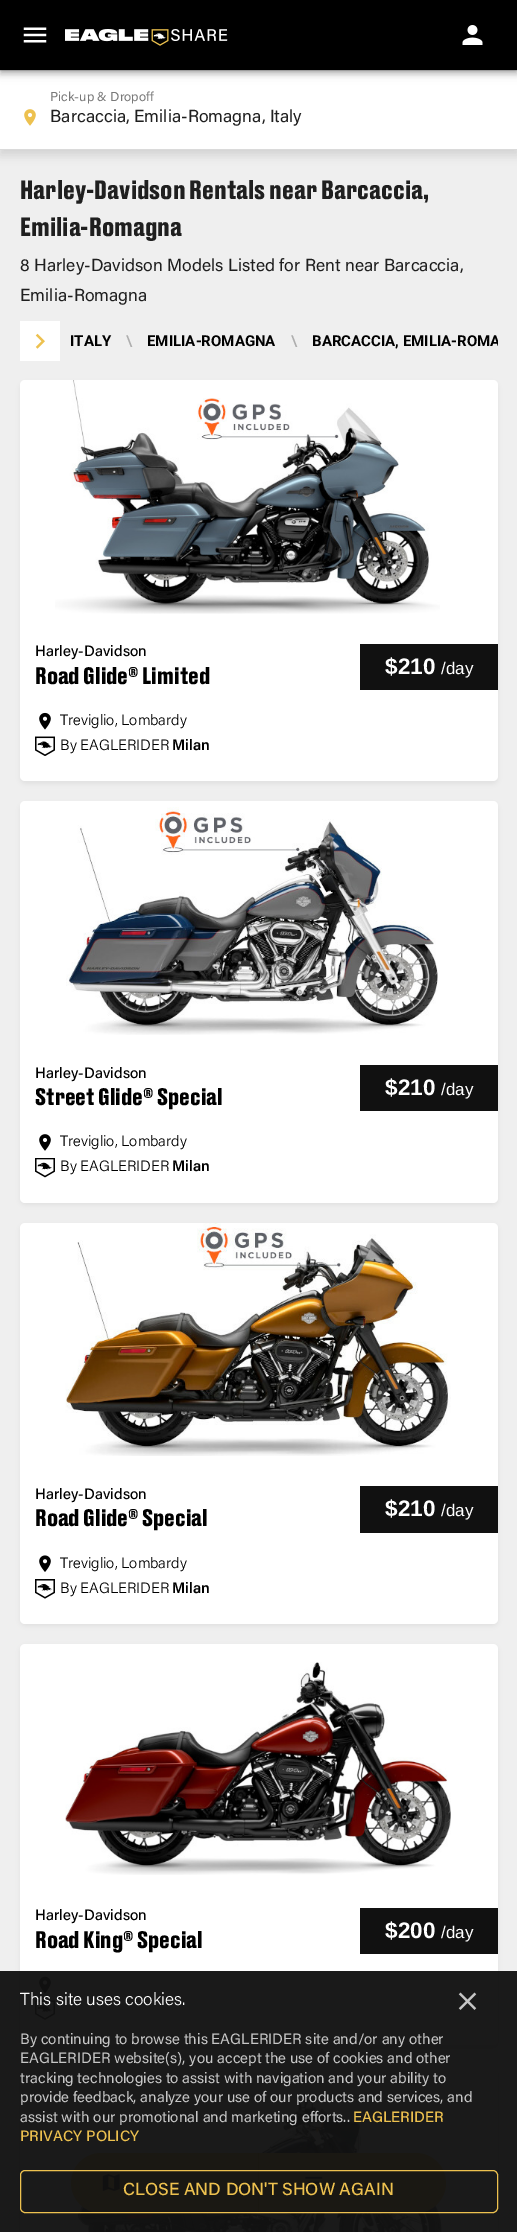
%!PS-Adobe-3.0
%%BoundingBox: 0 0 517 2232
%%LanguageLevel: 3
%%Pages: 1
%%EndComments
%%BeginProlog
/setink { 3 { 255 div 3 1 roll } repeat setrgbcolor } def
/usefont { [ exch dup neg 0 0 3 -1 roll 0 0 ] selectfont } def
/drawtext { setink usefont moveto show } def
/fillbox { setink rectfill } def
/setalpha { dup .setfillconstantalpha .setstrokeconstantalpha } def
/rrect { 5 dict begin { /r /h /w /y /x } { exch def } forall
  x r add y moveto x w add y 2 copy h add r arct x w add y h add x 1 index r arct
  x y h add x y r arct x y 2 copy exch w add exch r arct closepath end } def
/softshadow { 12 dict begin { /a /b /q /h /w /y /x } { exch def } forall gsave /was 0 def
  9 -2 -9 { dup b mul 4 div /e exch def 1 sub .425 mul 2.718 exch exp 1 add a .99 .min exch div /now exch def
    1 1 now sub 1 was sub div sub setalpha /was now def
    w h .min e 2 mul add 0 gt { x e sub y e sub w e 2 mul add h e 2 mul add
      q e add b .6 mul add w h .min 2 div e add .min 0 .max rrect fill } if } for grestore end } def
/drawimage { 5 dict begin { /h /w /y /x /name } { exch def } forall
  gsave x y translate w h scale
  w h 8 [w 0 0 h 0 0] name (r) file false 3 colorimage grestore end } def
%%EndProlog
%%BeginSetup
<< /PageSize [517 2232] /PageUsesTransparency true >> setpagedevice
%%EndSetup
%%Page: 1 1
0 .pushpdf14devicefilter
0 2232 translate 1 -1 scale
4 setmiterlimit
0 0 517 2232 239 239 239 fillbox
0 0 0 setink
0 75 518 80 0 5 0.12 softshadow
0 71 517 78 255 255 255 fillbox
0 70 517 1 218 218 218 fillbox
0 0 0 setink
0 1 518 70 0 6 0.12 softshadow
0 5 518 70 0 3 0.14 softshadow
1 4 515 67 0 2.5 0.2 softshadow
0 0 517 70 0 0 0 fillbox
(assets/img1.rgb) 23 27 24 16 drawimage
(assets/img2.rgb) 65 29 163 17 drawimage
(assets/img3.rgb) 462 25 21 20 drawimage
0 149 517 1 218 218 218 fillbox
(Pick-up & Dropoff) 50 101 /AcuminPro-Regular 13 121 121 121 drawtext
(assets/img4.rgb) 24 109 12 17 drawimage
(Barcaccia, Emilia-Romagna, Italy) 50 122 /AcuminPro-Regular 17.5 31 31 31 drawtext
(Harley-Davidson Rentals near Barcaccia,) 20 199 /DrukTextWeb-Bold 25 31 31 31 drawtext
(Emilia-Romagna) 20 236 /DrukTextWeb-Bold 25 31 31 31 drawtext
(8 Harley-Davidson Models Listed for Rent near Barcaccia,) 20 271 /AcuminPro-Regular 17.5 31 31 31 drawtext
(Emilia-Romagna) 20 301 /AcuminPro-Regular 17.5 31 31 31 drawtext
20 321 40 40 255 255 255 fillbox
(assets/img5.rgb) 35 333 10 16 drawimage
(ITALY) 70 346 /Roboto-Bold 15 0 0 0 drawtext
(\\) 126 346 /Roboto-Medium 15 174 174 174 drawtext
(EMILIA-ROMAGNA) 147 346 /Roboto-Bold 15 0 0 0 drawtext
(\\) 291 346 /Roboto-Medium 15 174 174 174 drawtext
gsave
20 313 478 57 rectclip
(BARCACCIA, EMILIA-ROMA) 312 346 /Roboto-Bold 15 0 0 0 drawtext
grestore
0 0 0 setink
20 383 478 401 5 2.5 0.05 softshadow
255 255 255 setink
20 380 478 401 5 rrect fill
(assets/img6.rgb) 55 380 385 234 drawimage
(Harley-Davidson) 35 656 /AcuminPro-Medium 15 0 0 0 drawtext
(Road Glide® Limited) 35 684 /DrukTextWeb-Bold 22.5 0 0 0 drawtext
360 644 138 46 17 17 17 fillbox
($210) 385 674 /LiberationSans-Bold 22.5 255 255 255 drawtext
(/day) 441 674 /LiberationSans-Regular 17 255 255 255 drawtext
(assets/img7.rgb) 39 712 12 18 drawimage
(Treviglio, Lombardy) 60 725 /AcuminPro-Light 15 0 0 0 drawtext
(assets/img8.rgb) 35 736 20 20 drawimage
(By EAGLERIDER) 60 750 /AcuminPro-Light 15 0 0 0 drawtext
(Milan) 172 750 /AcuminPro-SemiBold 15 0 0 0 drawtext
20 804 478 401 5 2.5 0.05 softshadow
255 255 255 setink
20 801 478 402 5 rrect fill
(assets/img9.rgb) 66 807 372 228 drawimage
(Harley-Davidson) 35 1078 /AcuminPro-Medium 15 0 0 0 drawtext
(Street Glide® Special) 35 1105 /DrukTextWeb-Bold 22.5 0 0 0 drawtext
360 1065 138 46 17 17 17 fillbox
($210) 385 1095 /LiberationSans-Bold 22.5 255 255 255 drawtext
(/day) 441 1095 /LiberationSans-Regular 17 255 255 255 drawtext
(assets/img10.rgb) 39 1134 12 17 drawimage
(Treviglio, Lombardy) 60 1146 /AcuminPro-Light 15 0 0 0 drawtext
(assets/img11.rgb) 35 1158 20 20 drawimage
(By EAGLERIDER) 60 1171 /AcuminPro-Light 15 0 0 0 drawtext
(Milan) 172 1171 /AcuminPro-SemiBold 15 0 0 0 drawtext
20 1225 478 401 5 2.5 0.05 softshadow
255 255 255 setink
20 1223 478 401 5 rrect fill
(assets/img12.rgb) 65 1223 386 233 drawimage
(Harley-Davidson) 35 1499 /AcuminPro-Medium 15 0 0 0 drawtext
(Road Glide® Special) 35 1526 /DrukTextWeb-Bold 22.5 0 0 0 drawtext
360 1486 138 47 17 17 17 fillbox
($210) 385 1516 /LiberationSans-Bold 22.5 255 255 255 drawtext
(/day) 441 1516 /LiberationSans-Regular 17 255 255 255 drawtext
(assets/img13.rgb) 39 1555 12 17 drawimage
(Treviglio, Lombardy) 60 1568 /AcuminPro-Light 15 0 0 0 drawtext
(assets/img14.rgb) 35 1579 20 20 drawimage
(By EAGLERIDER) 60 1593 /AcuminPro-Light 15 0 0 0 drawtext
(Milan) 172 1593 /AcuminPro-SemiBold 15 0 0 0 drawtext
20 1646 478 402 5 2.5 0.05 softshadow
255 255 255 setink
20 1644 478 401 5 rrect fill
(assets/img15.rgb) 65 1662 386 213 drawimage
(Harley-Davidson) 35 1920 /AcuminPro-Medium 15 0 0 0 drawtext
(Road King® Special) 35 1948 /DrukTextWeb-Bold 22.5 0 0 0 drawtext
360 1908 138 46 17 17 17 fillbox
($200) 385 1938 /LiberationSans-Bold 22.5 255 255 255 drawtext
(/day) 441 1938 /LiberationSans-Regular 17 255 255 255 drawtext
(assets/img16.rgb) 39 1976 12 18 drawimage
(assets/img17.rgb) 35 2000 20 20 drawimage
0 0 0 setink
20 2068 478 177 5 2.5 0.05 softshadow
255 255 255 setink
20 2065 478 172 5 rrect fill
(assets/img18.rgb) 77 2091 365 141 drawimage
237 193 79 setink
101 2153 moveto 259 2153 lineto 259 2213 lineto 101 2213 lineto 84.5 2213 71 2199.5 71 2183 curveto 71 2166.5 84.5 2153 101 2153 curveto closepath fill
258 2153 1 60 229 172 23 fillbox
(assets/img19.rgb) 102 2174 18 17 drawimage
237 193 79 setink
259 2153 moveto 416 2153 lineto 432.5 2153 446 2166.5 446 2183 curveto 446 2199.5 432.5 2213 416 2213 curveto 259 2213 lineto closepath fill
(assets/img20.rgb) 305 2176 18 13 drawimage
0.96 setalpha
0 1971 517 261 17 17 17 fillbox
1 setalpha
(This site uses cookies.) 20 2005 /AcuminPro-Light 17.5 255 255 255 drawtext
(assets/img21.rgb) 458 1992 19 18 drawimage
(By continuing to browse this EAGLERIDER site and/or any other) 20 2044 /AcuminPro-Regular 15 198 198 198 drawtext
(EAGLERIDER website\(s\), you accept the use of cookies and other) 20 2063 /AcuminPro-Regular 15 198 198 198 drawtext
(tracking technologies to assist with navigation and your ability to) 20 2083 /AcuminPro-Regular 15 198 198 198 drawtext
(provide feedback, analyze your use of our products and services, and) 20 2102 /AcuminPro-Regular 15 198 198 198 drawtext
(assist with our promotional and marketing efforts.) 20 2122 /AcuminPro-Regular 15 198 198 198 drawtext
(.) 347 2122 /AcuminPro-Regular 15 198 198 198 drawtext
(EAGLERIDER) 353 2122 /AcuminPro-Medium 15 237 193 79 drawtext
(PRIVACY POLICY) 20 2141 /AcuminPro-Medium 15 237 193 79 drawtext
20.5 2170.5 477 42 4.5 rrect stroke
(CLOSE AND DON'T SHOW AGAIN) 123 2195 /AcuminPro-Medium 17.5 237 193 79 drawtext
.poppdf14devicefilter showpage
%%EOF
